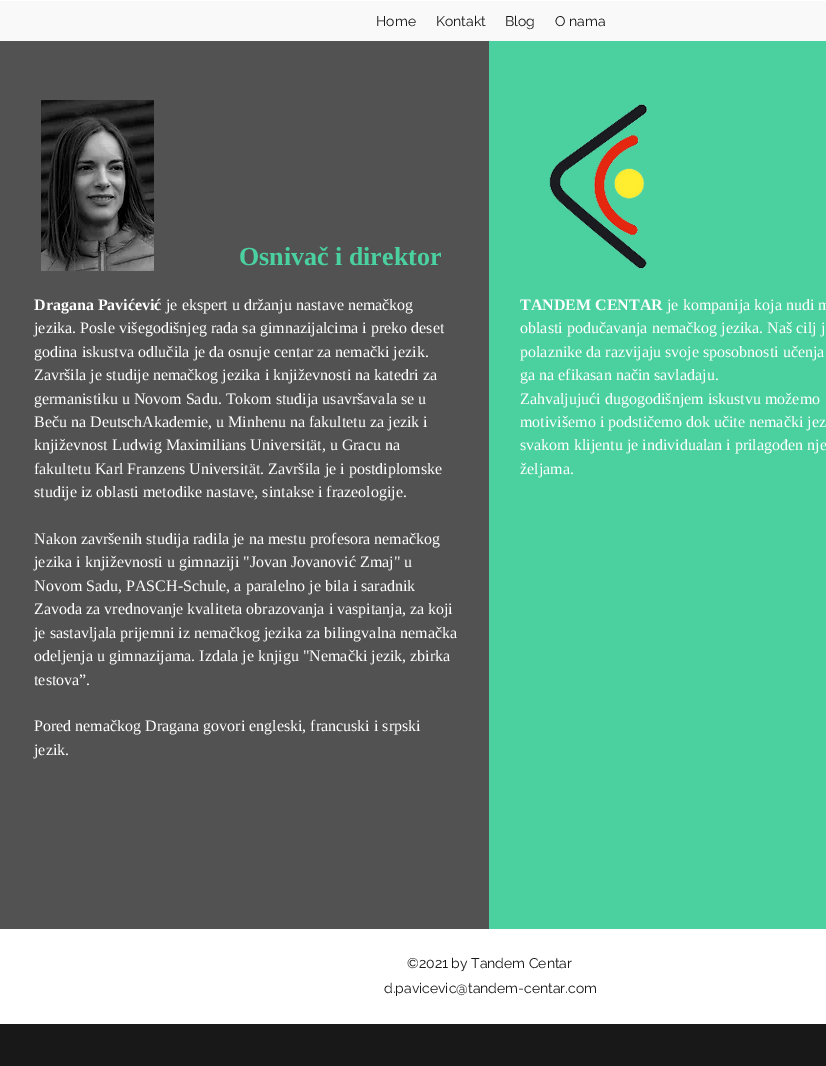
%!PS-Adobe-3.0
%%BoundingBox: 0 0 826 1066
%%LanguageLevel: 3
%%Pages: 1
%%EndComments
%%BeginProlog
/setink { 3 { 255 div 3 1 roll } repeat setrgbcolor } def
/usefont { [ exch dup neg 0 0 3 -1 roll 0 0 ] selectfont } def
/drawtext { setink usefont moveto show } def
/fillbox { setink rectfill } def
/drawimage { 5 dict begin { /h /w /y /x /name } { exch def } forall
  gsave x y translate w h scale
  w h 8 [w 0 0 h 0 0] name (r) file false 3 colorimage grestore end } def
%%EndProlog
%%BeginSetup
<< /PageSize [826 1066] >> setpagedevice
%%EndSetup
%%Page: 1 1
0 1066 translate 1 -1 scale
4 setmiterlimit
0 0 826 1066 24 24 24 fillbox
0 0 826 1 255 255 255 fillbox
0 1 826 40 249 249 249 fillbox
(Home) 376 26 /Raleway-Regular 14 24 24 24 drawtext
(Kontakt) 436 26 /Raleway-Regular 14 24 24 24 drawtext
(Blog) 505 26 /Raleway-Regular 14 24 24 24 drawtext
(O nama) 555 26 /Raleway-Regular 14 24 24 24 drawtext
0 41 489 888 82 82 82 fillbox
(assets/img1.rgb) 41 100 113 171 drawimage
(Osnivač i direktor) 239 265 /LiberationSerif-Bold 26 75 209 160 drawtext
(Dragana Pavićević) 34 310 /LiberationSerif-Bold 16 255 255 255 drawtext
(je ekspert u držanju nastave nemačkog) 166 310 /LiberationSerif-Regular 16 255 255 255 drawtext
(jezika. Posle višegodišnjeg rada sa gimnazijalcima i preko deset) 34 333 /LiberationSerif-Regular 16 255 255 255 drawtext
(godina iskustva odlučila je da osnuje centar za nemački jezik.) 34 357 /LiberationSerif-Regular 16 255 255 255 drawtext
(Završila je studije nemačkog jezika i književnosti na katedri za) 34 380 /LiberationSerif-Regular 16 255 255 255 drawtext
(germanistiku u Novom Sadu. Tokom studija usavršavala se u) 34 404 /LiberationSerif-Regular 16 255 255 255 drawtext
(Beču na DeutschAkademie, u Minhenu na fakultetu za jezik i) 34 427 /LiberationSerif-Regular 16 255 255 255 drawtext
(književnost Ludwig Maximilians Universität, u Gracu na) 34 450 /LiberationSerif-Regular 16 255 255 255 drawtext
(fakultetu Karl Franzens Universität. Završila je i postdiplomske) 34 474 /LiberationSerif-Regular 16 255 255 255 drawtext
(studije iz oblasti metodike nastave, sintakse i frazeologije.) 34 497 /LiberationSerif-Regular 16 255 255 255 drawtext
(Nakon završenih studija radila je na mestu profesora nemačkog) 34 544 /LiberationSerif-Regular 16 255 255 255 drawtext
(jezika i književnosti u gimnaziji "Jovan Jovanović Zmaj" u) 34 567 /LiberationSerif-Regular 16 255 255 255 drawtext
(Novom Sadu, PASCH-Schule, a paralelno je bila i saradnik) 34 591 /LiberationSerif-Regular 16 255 255 255 drawtext
(Zavoda za vrednovanje kvaliteta obrazovanja i vaspitanja, za koji) 34 614 /LiberationSerif-Regular 16 255 255 255 drawtext
(je sastavljala prijemni iz nemačkog jezika za bilingvalna nemačka) 34 638 /LiberationSerif-Regular 16 255 255 255 drawtext
(odeljenja u gimnazijama. Izdala je knjigu "Nemački jezik, zbirka) 34 661 /LiberationSerif-Regular 16 255 255 255 drawtext
(testova”.) 34 685 /LiberationSerif-Regular 16 255 255 255 drawtext
(Pored nemačkog Dragana govori engleski, francuski i srpski) 34 731 /LiberationSerif-Regular 16 255 255 255 drawtext
(jezik.) 34 755 /LiberationSerif-Regular 16 255 255 255 drawtext
489 41 337 888 75 209 160 fillbox
(assets/img2.rgb) 549 104 99 165 drawimage
(TANDEM CENTAR) 520 310 /LiberationSerif-Bold 16 255 255 255 drawtext
(je kompanija koja nudi m) 667 310 /LiberationSerif-Regular 16 255 255 255 drawtext
(oblasti podučavanja nemačkog jezika. Naš cilj j) 520 333 /LiberationSerif-Regular 16 255 255 255 drawtext
(polaznike da razvijaju svoje sposobnosti učenja) 520 357 /LiberationSerif-Regular 16 255 255 255 drawtext
(ga na efikasan način savladaju.) 520 380 /LiberationSerif-Regular 16 255 255 255 drawtext
(Zahvaljujući dugogodišnjem iskustvu možemo) 520 404 /LiberationSerif-Regular 16 255 255 255 drawtext
(motivišemo i podstičemo dok učite nemački jez) 520 427 /LiberationSerif-Regular 16 255 255 255 drawtext
(svakom klijentu je individualan i prilagođen nje) 520 450 /LiberationSerif-Regular 16 255 255 255 drawtext
(željama.) 520 474 /LiberationSerif-Regular 16 255 255 255 drawtext
0 929 826 95 255 255 255 fillbox
(©2021 by Tandem Centar) 407 968 /Raleway-Regular 14 24 24 24 drawtext
(d.pavicevic@tandem-centar.com) 384 993 /Raleway-Regular 14 24 24 24 drawtext
showpage
%%EOF
